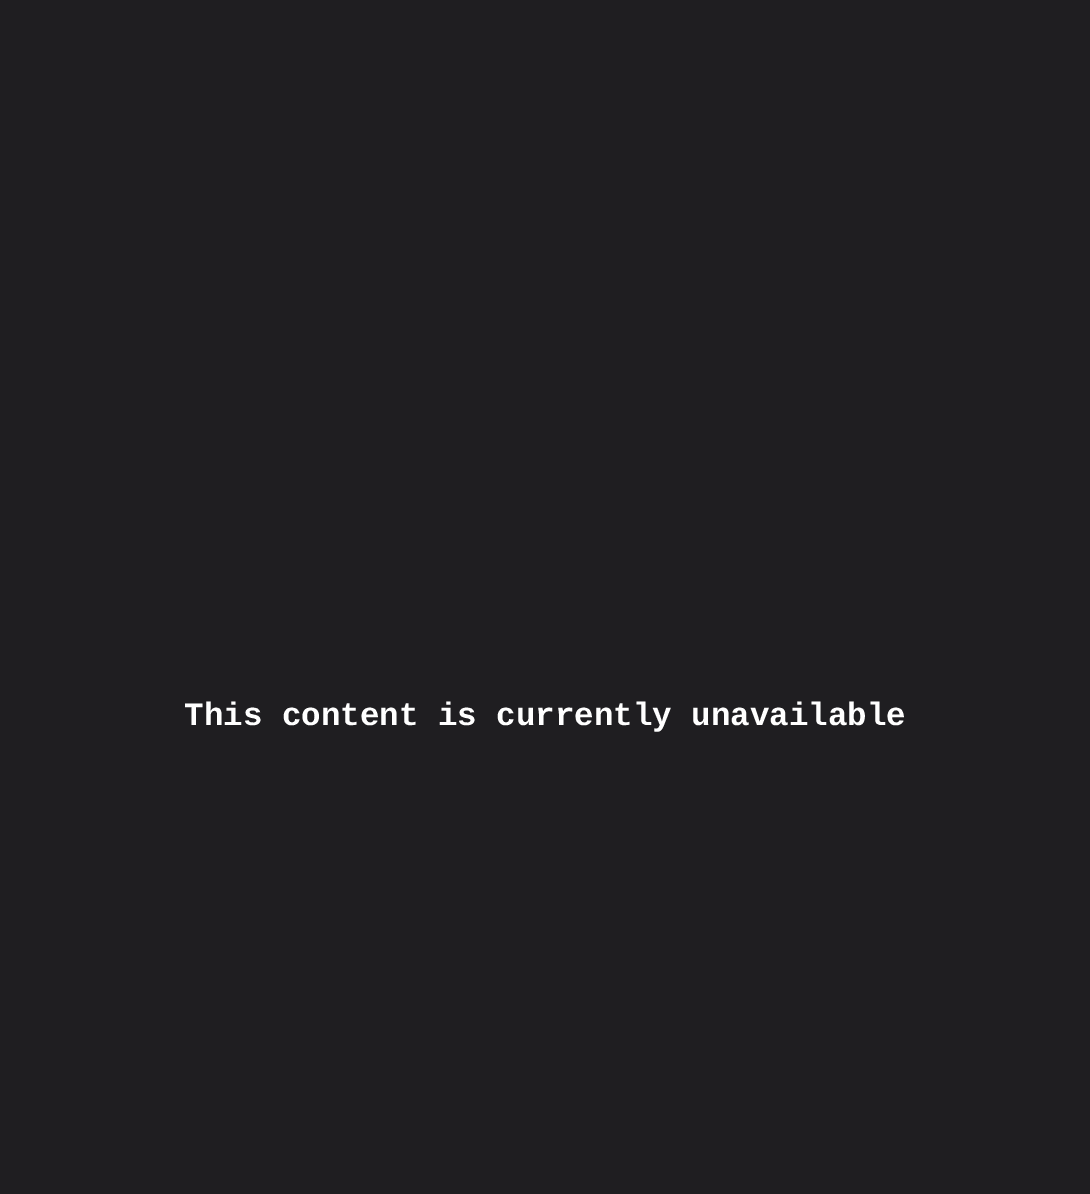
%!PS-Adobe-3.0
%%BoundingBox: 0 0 1090 1194
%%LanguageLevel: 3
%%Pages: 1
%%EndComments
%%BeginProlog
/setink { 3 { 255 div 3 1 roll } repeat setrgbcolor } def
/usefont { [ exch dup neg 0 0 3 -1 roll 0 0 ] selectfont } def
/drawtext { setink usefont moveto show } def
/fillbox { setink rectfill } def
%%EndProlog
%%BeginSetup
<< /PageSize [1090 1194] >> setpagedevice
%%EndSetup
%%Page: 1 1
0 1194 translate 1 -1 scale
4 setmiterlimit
0 0 1090 1194 31 30 33 fillbox
(This content is currently unavailable) 184 725 /LiberationMono-Bold 32.5 255 255 255 drawtext
showpage
%%EOF
